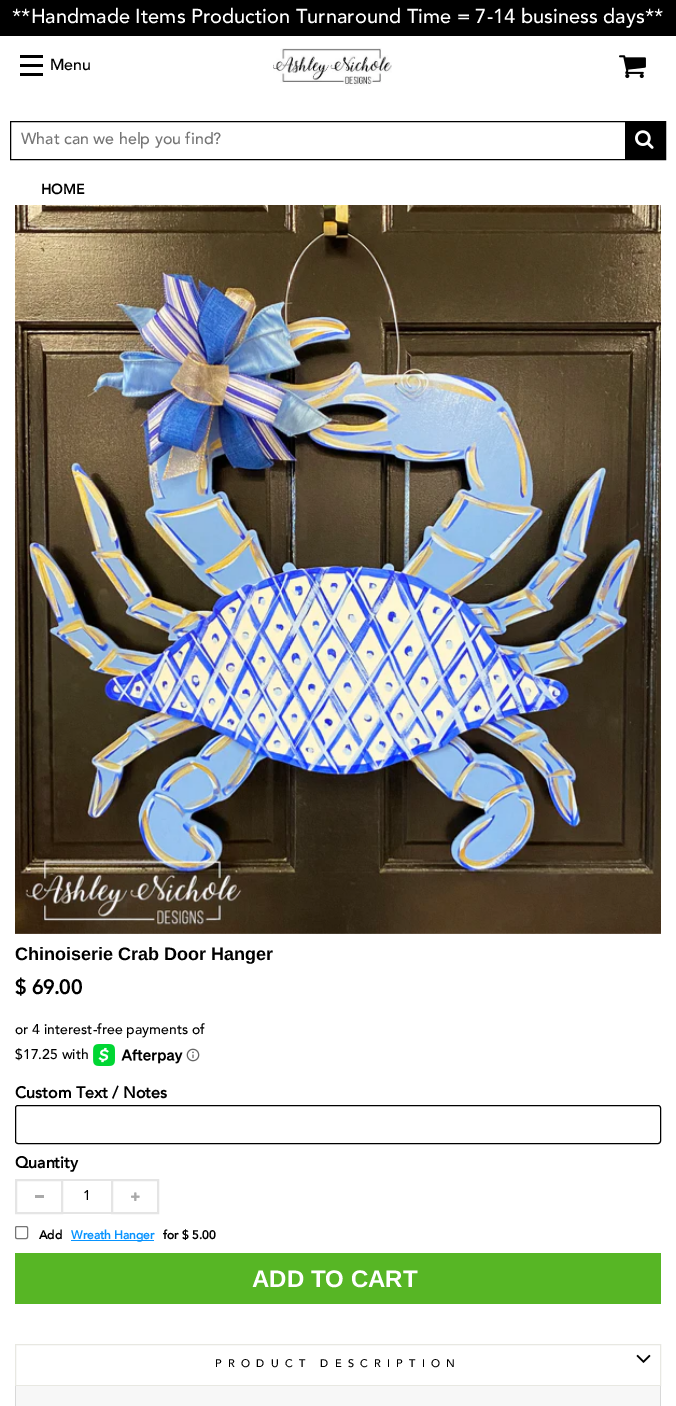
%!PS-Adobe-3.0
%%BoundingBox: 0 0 676 1406
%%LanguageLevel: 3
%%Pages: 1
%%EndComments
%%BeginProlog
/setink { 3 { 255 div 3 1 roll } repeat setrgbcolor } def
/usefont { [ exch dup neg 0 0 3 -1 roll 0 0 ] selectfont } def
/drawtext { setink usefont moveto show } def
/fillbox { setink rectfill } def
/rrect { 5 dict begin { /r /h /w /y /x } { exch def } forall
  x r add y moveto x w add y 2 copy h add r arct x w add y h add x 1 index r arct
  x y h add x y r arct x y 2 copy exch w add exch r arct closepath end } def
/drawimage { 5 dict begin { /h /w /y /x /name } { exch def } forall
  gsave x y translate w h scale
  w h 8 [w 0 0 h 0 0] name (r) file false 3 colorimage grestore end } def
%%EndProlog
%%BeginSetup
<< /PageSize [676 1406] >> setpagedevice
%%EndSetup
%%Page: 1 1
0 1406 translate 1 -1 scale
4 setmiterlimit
0 0 676 1406 255 255 255 fillbox
0 0 676 36 0 0 0 fillbox
(**Handmade Items Production Turnaround Time = 7-14 business days**) 12 23 /Avenir-Medium 20 255 255 255 drawtext
20 55 23 3 0 0 0 fillbox
20 64 23 3 0 0 0 fillbox
20 73 23 3 0 0 0 fillbox
(Menu) 50 70 /Avenir-Medium 16 0 0 0 drawtext
(assets/img1.rgb) 273 48 119 38 drawimage
(assets/img2.rgb) 619 55 27 24 drawimage
10.5 121.5 655 38 rectstroke
(What can we help you find?) 21 144 /Avenir-Medium 16 117 117 117 drawtext
625 122 40 37 0 0 0 fillbox
(assets/img3.rgb) 635 130 19 19 drawimage
(HOME) 41 194 /Avenir-Bold 14 0 0 0 drawtext
(assets/img4.rgb) 15 205 646 729 drawimage
(Chinoiserie Crab Door Hanger) 15 960 /LiberationSans-Bold 18 0 0 0 drawtext
($ 69.00) 15 994 /Avenir-Bold 20 0 0 0 drawtext
(or 4 interest-free payments of) 15 1034 /Avenir-Medium 14 0 0 0 drawtext
($17.25 with) 15 1059 /Avenir-Medium 14 0 0 0 drawtext
(assets/img5.rgb) 93 1044 90 22 drawimage
(assets/img6.rgb) 186 1048 14 14 drawimage
(Custom Text / Notes) 15 1098 /Avenir-Bold 16 0 0 0 drawtext
15.5 1105.5 645 38 2.5 rrect stroke
(Quantity) 15 1168 /Avenir-Bold 16 0 0 0 drawtext
229 229 229 setink
2 setlinewidth
16 1180 46 33 rectstroke
35 1195 9 3 169 169 169 fillbox
63 1179 48 2 229 229 229 fillbox
63 1212 48 2 229 229 229 fillbox
(1) 83 1200 /Avenir-Medium 14 0 0 0 drawtext
229 229 229 setink
112 1180 46 33 rectstroke
(assets/img7.rgb) 131 1192 9 9 drawimage
118 118 118 setink
1 setlinewidth
15.5 1226.5 12 12 1.5 rrect stroke
(Add) 39 1239 /Avenir-Bold 12 0 0 0 drawtext
71 1240 83 1 7 147 255 fillbox
(Wreath Hanger) 71 1239 /Avenir-Bold 12 7 147 255 drawtext
(for $ 5.00) 163 1239 /Avenir-Bold 12 0 0 0 drawtext
15 1253 646 51 87 182 37 fillbox
(ADD TO CART) 252 1287 /LiberationSans-Bold 24 255 255 255 drawtext
232 232 226 setink
15.5 1344.5 645 41 rectstroke
/Avenir-Medium 11 usefont
0 0 0 setink
215 1367 moveto 6.25 0 (PRODUCT DESCRIPTION) ashow
(assets/img8.rgb) 636 1354 15 9 drawimage
16 1386 644 20 247 247 247 fillbox
660 1386 1 20 216 216 216 fillbox
15 1386 1 20 216 216 216 fillbox
showpage
%%EOF
